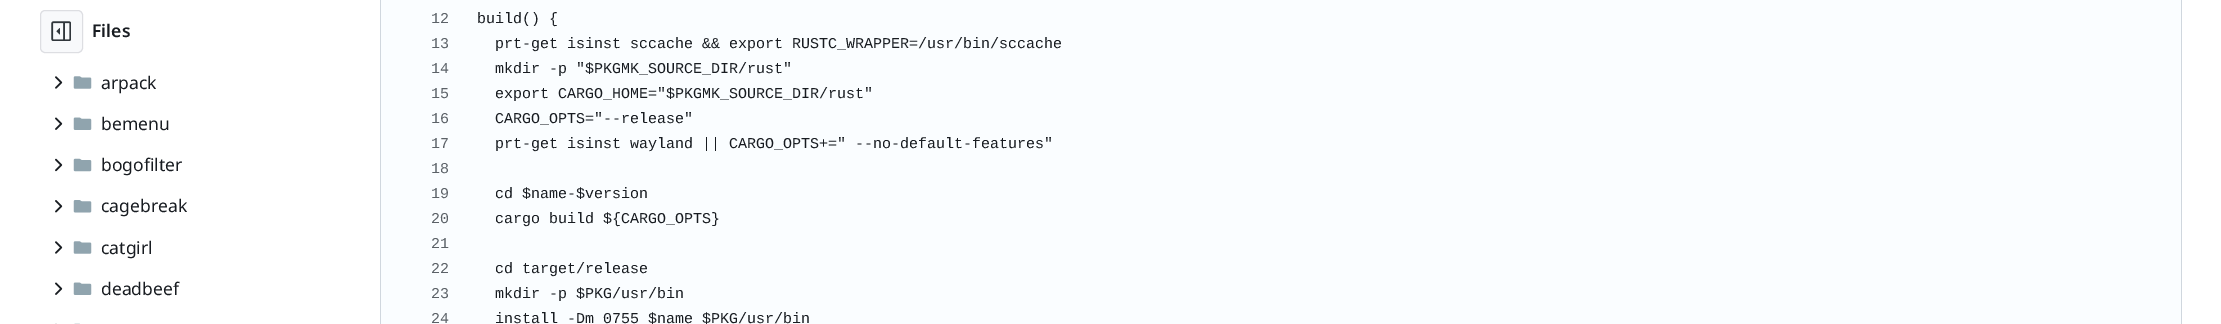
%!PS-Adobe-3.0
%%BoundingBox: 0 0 2221 324
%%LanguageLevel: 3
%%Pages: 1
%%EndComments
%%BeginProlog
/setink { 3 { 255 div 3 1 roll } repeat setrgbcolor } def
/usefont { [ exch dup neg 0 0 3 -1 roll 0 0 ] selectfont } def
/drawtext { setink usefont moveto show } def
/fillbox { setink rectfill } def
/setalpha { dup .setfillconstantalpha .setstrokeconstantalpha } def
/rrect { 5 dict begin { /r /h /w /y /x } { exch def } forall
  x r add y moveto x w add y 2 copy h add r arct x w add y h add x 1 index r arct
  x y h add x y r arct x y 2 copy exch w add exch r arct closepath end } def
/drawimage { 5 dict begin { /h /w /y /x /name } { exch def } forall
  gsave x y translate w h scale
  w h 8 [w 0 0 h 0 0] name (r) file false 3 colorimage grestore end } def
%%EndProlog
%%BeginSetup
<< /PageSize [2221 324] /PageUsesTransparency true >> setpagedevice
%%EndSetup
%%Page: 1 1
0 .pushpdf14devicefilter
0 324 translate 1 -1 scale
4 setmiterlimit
0 0 2221 324 255 255 255 fillbox
248 249 251 setink
40 10 43 43 5 rrect fill
0.11 setalpha
0 0 23 setink
40.5 10.5 42 42 4.5 rrect stroke
1 setalpha
(assets/img1.rgb) 51 21 20 20 drawimage
(Files) 92 37 /NotoSans-SemiBold 17.5 24 28 33 drawtext
(assets/img2.rgb) 55 76 8 13 drawimage
(assets/img3.rgb) 73 76 19 13 drawimage
(arpack) 101 89 /NotoSans-Regular 17.5 24 28 33 drawtext
(assets/img4.rgb) 55 117 8 13 drawimage
(assets/img5.rgb) 73 117 19 13 drawimage
(bemenu) 101 130 /NotoSans-Regular 17.5 24 28 33 drawtext
(assets/img6.rgb) 55 158 8 14 drawimage
(assets/img7.rgb) 73 158 19 14 drawimage
(bogofilter) 101 171 /NotoSans-Regular 17.5 24 28 33 drawtext
(assets/img8.rgb) 55 200 8 13 drawimage
(assets/img9.rgb) 73 200 19 13 drawimage
(cagebreak) 101 212 /NotoSans-Regular 17.5 24 28 33 drawtext
(assets/img2.rgb) 55 241 8 13 drawimage
(assets/img3.rgb) 73 241 19 13 drawimage
(catgirl) 101 254 /NotoSans-Regular 17.5 24 28 33 drawtext
(assets/img4.rgb) 55 282 8 13 drawimage
(assets/img5.rgb) 73 282 19 13 drawimage
(deadbeef) 101 295 /NotoSans-Regular 17.5 24 28 33 drawtext
55 323 2 1 234 235 235 fillbox
(assets/img10.rgb) 74 323 6 1 drawimage
208 215 222 setink
380 -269 moveto 2182 -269 lineto 2182 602 lineto 2182 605 2180 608 2178 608 curveto 385 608 lineto 382 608 380 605 380 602 curveto closepath 381 -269 moveto 2181 -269 lineto 2181 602 lineto 2181 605 2180 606 2178 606 curveto 385 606 lineto 383 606 381 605 381 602 curveto closepath eofill
381 0 1800 324 250 253 255 fillbox
(12) 431 23 /LiberationMono-Regular 15 91 97 103 drawtext
(build\(\) {) 477 23 /LiberationMono-Regular 15 24 28 33 drawtext
(13) 431 48 /LiberationMono-Regular 15 91 97 103 drawtext
(prt-get isinst sccache && export RUSTC_WRAPPER=/usr/bin/sccache) 495 48 /LiberationMono-Regular 15 24 28 33 drawtext
(14) 431 73 /LiberationMono-Regular 15 91 97 103 drawtext
(mkdir -p "$PKGMK_SOURCE_DIR/rust") 495 73 /LiberationMono-Regular 15 24 28 33 drawtext
(15) 431 98 /LiberationMono-Regular 15 91 97 103 drawtext
(export CARGO_HOME="$PKGMK_SOURCE_DIR/rust") 495 98 /LiberationMono-Regular 15 24 28 33 drawtext
(16) 431 123 /LiberationMono-Regular 15 91 97 103 drawtext
(CARGO_OPTS="--release") 495 123 /LiberationMono-Regular 15 24 28 33 drawtext
(17) 431 148 /LiberationMono-Regular 15 91 97 103 drawtext
(prt-get isinst wayland || CARGO_OPTS+=" --no-default-features") 495 148 /LiberationMono-Regular 15 24 28 33 drawtext
(18) 431 173 /LiberationMono-Regular 15 91 97 103 drawtext
(19) 431 198 /LiberationMono-Regular 15 91 97 103 drawtext
(cd $name-$version) 495 198 /LiberationMono-Regular 15 24 28 33 drawtext
(20) 431 223 /LiberationMono-Regular 15 91 97 103 drawtext
(cargo build ${CARGO_OPTS}) 495 223 /LiberationMono-Regular 15 24 28 33 drawtext
(21) 431 248 /LiberationMono-Regular 15 91 97 103 drawtext
(22) 431 273 /LiberationMono-Regular 15 91 97 103 drawtext
(cd target/release) 495 273 /LiberationMono-Regular 15 24 28 33 drawtext
(23) 431 298 /LiberationMono-Regular 15 91 97 103 drawtext
(mkdir -p $PKG/usr/bin) 495 298 /LiberationMono-Regular 15 24 28 33 drawtext
(24) 431 323 /LiberationMono-Regular 15 91 97 103 drawtext
(install -Dm 0755 $name $PKG/usr/bin) 495 323 /LiberationMono-Regular 15 24 28 33 drawtext
.poppdf14devicefilter showpage
%%EOF
